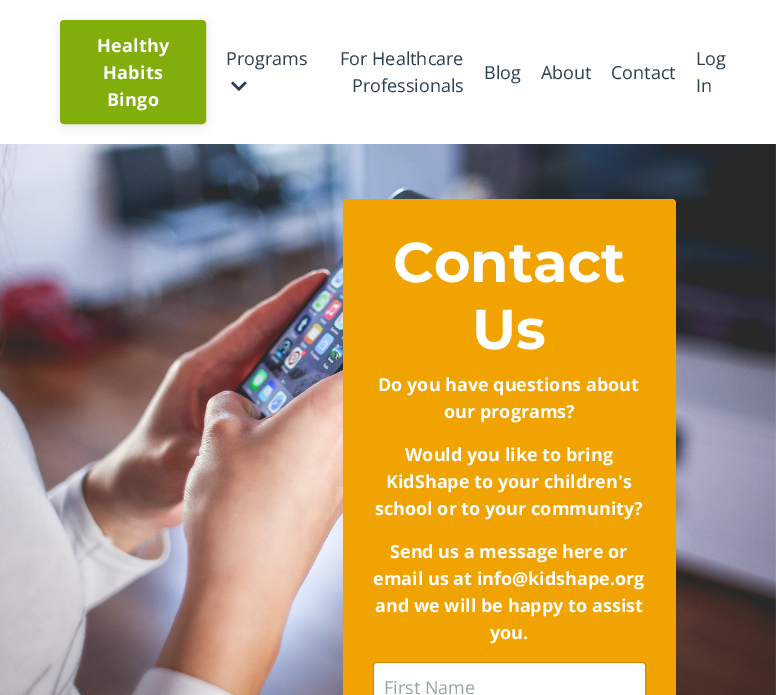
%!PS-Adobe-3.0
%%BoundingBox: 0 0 776 695
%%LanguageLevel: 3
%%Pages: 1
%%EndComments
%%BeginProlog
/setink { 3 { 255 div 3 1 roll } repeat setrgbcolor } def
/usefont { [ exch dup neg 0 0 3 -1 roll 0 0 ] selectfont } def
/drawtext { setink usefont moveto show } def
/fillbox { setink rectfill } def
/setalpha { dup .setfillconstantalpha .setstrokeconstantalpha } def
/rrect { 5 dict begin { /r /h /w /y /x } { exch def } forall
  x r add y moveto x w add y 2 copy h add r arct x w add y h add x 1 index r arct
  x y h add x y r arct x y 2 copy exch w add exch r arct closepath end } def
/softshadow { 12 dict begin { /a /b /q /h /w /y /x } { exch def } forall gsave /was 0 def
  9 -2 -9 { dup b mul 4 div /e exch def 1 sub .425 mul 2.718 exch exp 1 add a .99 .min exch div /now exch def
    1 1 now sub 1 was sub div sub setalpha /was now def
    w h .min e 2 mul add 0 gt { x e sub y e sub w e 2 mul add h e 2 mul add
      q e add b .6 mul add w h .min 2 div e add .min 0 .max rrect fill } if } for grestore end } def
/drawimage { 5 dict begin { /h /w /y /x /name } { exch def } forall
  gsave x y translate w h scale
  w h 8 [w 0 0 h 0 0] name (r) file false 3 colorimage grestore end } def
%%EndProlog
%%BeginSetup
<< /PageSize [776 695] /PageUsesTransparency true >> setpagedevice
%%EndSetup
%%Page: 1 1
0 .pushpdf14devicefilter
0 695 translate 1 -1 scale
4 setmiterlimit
0 0 776 695 255 255 255 fillbox
0 0 0 setink
60 22 146 104 4 5 0.1 softshadow
129 174 11 setink
61 21 144 102 3 rrect gsave fill grestore
2 setlinewidth
stroke
/OpenSans-Bold 18 usefont
255 255 255 setink
97 52 moveto 0.25 0 (Healthy) ashow
103 79 moveto 0.25 0 (Habits) ashow
107 106 moveto 0.25 0 (Bingo) ashow
(Programs) 226 65 /OpenSans-Regular 18 44 62 80 drawtext
(assets/img1.rgb) 231 81 16 10 drawimage
(For Healthcare) 340 65 /OpenSans-Regular 18 44 62 80 drawtext
(Professionals) 352 92 /OpenSans-Regular 18 44 62 80 drawtext
(Blog) 484 79 /OpenSans-Regular 18 44 62 80 drawtext
(About) 541 79 /OpenSans-Regular 18 44 62 80 drawtext
(Contact) 611 79 /OpenSans-Regular 18 44 62 80 drawtext
(Log) 696 65 /OpenSans-Regular 18 44 62 80 drawtext
(In) 696 92 /OpenSans-Regular 18 44 62 80 drawtext
(assets/img2.rgb) 0 144 776 551 drawimage
241 163 1 setink
343 199 333 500 4 rrect fill
(Contact) 393 282 /Montserrat-Bold 56 255 255 255 drawtext
(Us) 472 349 /Montserrat-Bold 56 255 255 255 drawtext
(Do you have questions about) 378 391 /OpenSans-Bold 18 255 255 255 drawtext
(our programs?) 444 418 /OpenSans-Bold 18 255 255 255 drawtext
(Would you like to bring) 405 461 /OpenSans-Bold 18 255 255 255 drawtext
(KidShape to your children's) 386 488 /OpenSans-Bold 18 255 255 255 drawtext
(school or to your community?) 375 515 /OpenSans-Bold 18 255 255 255 drawtext
(Send us a message here or) 390 558 /OpenSans-Bold 18 255 255 255 drawtext
(email us at info@kidshape.org) 373 585 /OpenSans-Bold 18 255 255 255 drawtext
(and we will be happy to assist) 375 612 /OpenSans-Bold 18 255 255 255 drawtext
(you.) 490 639 /OpenSans-Bold 18 255 255 255 drawtext
374 663 271 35 3 rrect fill
0.15 setalpha
0 0 0 setink
1 setlinewidth
373.5 662.5 272 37 3.5 rrect stroke
1 setalpha
(First Name) 384 694 /OpenSans-Regular 18 149 165 166 drawtext
.poppdf14devicefilter showpage
%%EOF
